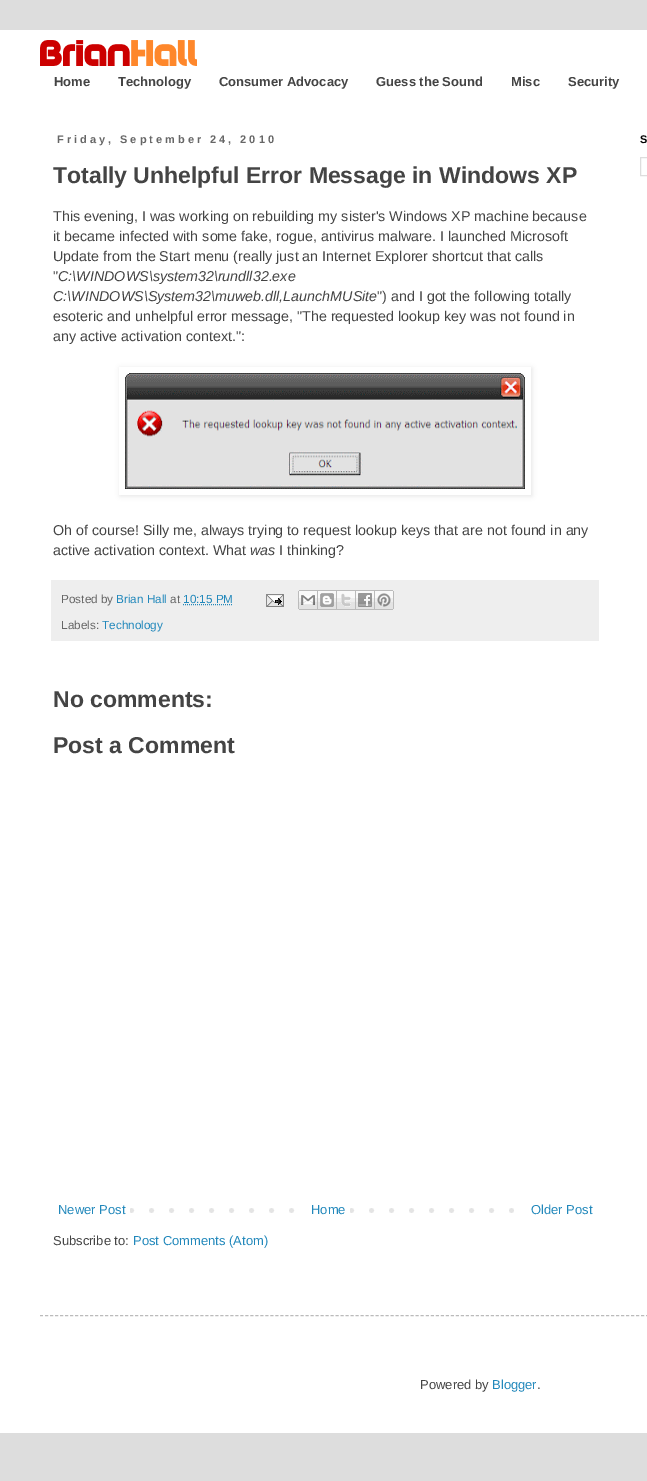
%!PS-Adobe-3.0
%%BoundingBox: 0 0 647 1481
%%LanguageLevel: 3
%%Pages: 1
%%EndComments
%%BeginProlog
/setink { 3 { 255 div 3 1 roll } repeat setrgbcolor } def
/usefont { [ exch dup neg 0 0 3 -1 roll 0 0 ] selectfont } def
/drawtext { setink usefont moveto show } def
/fillbox { setink rectfill } def
/setalpha { dup .setfillconstantalpha .setstrokeconstantalpha } def
/rrect { 5 dict begin { /r /h /w /y /x } { exch def } forall
  x r add y moveto x w add y 2 copy h add r arct x w add y h add x 1 index r arct
  x y h add x y r arct x y 2 copy exch w add exch r arct closepath end } def
/softshadow { 12 dict begin { /a /b /q /h /w /y /x } { exch def } forall gsave /was 0 def
  9 -2 -9 { dup b mul 4 div /e exch def 1 sub .425 mul 2.718 exch exp 1 add a .99 .min exch div /now exch def
    1 1 now sub 1 was sub div sub setalpha /was now def
    w h .min e 2 mul add 0 gt { x e sub y e sub w e 2 mul add h e 2 mul add
      q e add b .6 mul add w h .min 2 div e add .min 0 .max rrect fill } if } for grestore end } def
/drawimage { 5 dict begin { /h /w /y /x /name } { exch def } forall
  gsave x y translate w h scale
  w h 8 [w 0 0 h 0 0] name (r) file false 3 colorimage grestore end } def
%%EndProlog
%%BeginSetup
<< /PageSize [647 1481] /PageUsesTransparency true >> setpagedevice
%%EndSetup
%%Page: 1 1
0 .pushpdf14devicefilter
0 1481 translate 1 -1 scale
4 setmiterlimit
0 0 647 1481 221 221 221 fillbox
0 30 647 1403 255 255 255 fillbox
(assets/img1.rgb) 40 40 157 26 drawimage
(Home) 54 86 /LiberationSans-Bold 13 68 68 68 drawtext
(Technology) 118 86 /LiberationSans-Bold 13 68 68 68 drawtext
(Consumer Advocacy) 219 86 /LiberationSans-Bold 13 68 68 68 drawtext
(Guess the Sound) 376 86 /LiberationSans-Bold 13 68 68 68 drawtext
(Misc) 511 86 /LiberationSans-Bold 13 68 68 68 drawtext
(Security) 568 86 /LiberationSans-Bold 13 68 68 68 drawtext
/LiberationSans-Bold 11 usefont
102 102 102 setink
57 143 moveto 3 0 (Friday, September 24, 2010) ashow
(Totally Unhelpful Error Message in Windows XP) 53 183 /LiberationSans-Bold 23 68 68 68 drawtext
(This evening, I was working on rebuilding my sister's Windows XP machine because) 53 221 /LiberationSans-Regular 14.3 68 68 68 drawtext
(it became infected with some fake, rogue, antivirus malware. I launched Microsoft) 53 241 /LiberationSans-Regular 14.3 68 68 68 drawtext
(Update from the Start menu \(really just an Internet Explorer shortcut that calls) 53 261 /LiberationSans-Regular 14.3 68 68 68 drawtext
(") 53 281 /LiberationSans-Regular 14.3 68 68 68 drawtext
(C:\\WINDOWS\\system32\\rundll32.exe) 58 281 /LiberationSans-Italic 14.3 68 68 68 drawtext
(C:\\WINDOWS\\System32\\muweb.dll,LaunchMUSite) 53 301 /LiberationSans-Italic 14.3 68 68 68 drawtext
("\) and I got the following totally) 377 301 /LiberationSans-Regular 14.3 68 68 68 drawtext
(esoteric and unhelpful error message, "The requested lookup key was not found in) 53 321 /LiberationSans-Regular 14.3 68 68 68 drawtext
(any active activation context.":) 53 341 /LiberationSans-Regular 14.3 68 68 68 drawtext
gsave
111 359 moveto 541 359 lineto 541 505 lineto 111 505 lineto closepath 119 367 moveto 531 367 lineto 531 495 lineto 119 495 lineto closepath eoclip newpath
0 0 0 setink
120 368 412 128 0 2.5 0.1 softshadow
grestore
(assets/img2.rgb) 125 373 400 116 drawimage
(Oh of course! Silly me, always trying to request lookup keys that are not found in any) 53 535 /LiberationSans-Regular 14.3 68 68 68 drawtext
(active activation context. What) 53 555 /LiberationSans-Regular 14.3 68 68 68 drawtext
(was) 250 555 /LiberationSans-Italic 14.3 68 68 68 drawtext
(I thinking?) 279 555 /LiberationSans-Regular 14.3 68 68 68 drawtext
51 580 548 61 238 238 238 fillbox
(Posted by) 61 603 /LiberationSans-Regular 11.75 102 102 102 drawtext
(Brian Hall) 116 603 /LiberationSans-Regular 11.75 34 136 187 drawtext
(at) 170 603 /LiberationSans-Regular 11.75 102 102 102 drawtext
(10:15 PM) 183 603 /LiberationSans-Regular 11.75 34 136 187 drawtext
[1 1] 0 setdash
183 604.5 moveto 233 604.5 lineto stroke
(assets/img3.rgb) 266 594 18 13 drawimage
(assets/img4.rgb) 298 590 20 20 drawimage
(assets/img5.rgb) 318 590 19 20 drawimage
(assets/img6.rgb) 337 590 19 20 drawimage
(assets/img7.rgb) 356 590 19 20 drawimage
(assets/img8.rgb) 375 590 19 20 drawimage
(Labels:) 61 629 /LiberationSans-Regular 11.75 102 102 102 drawtext
(Technology) 102 629 /LiberationSans-Regular 11.75 34 136 187 drawtext
(No comments:) 53 707 /LiberationSans-Bold 23 68 68 68 drawtext
(Post a Comment) 53 753 /LiberationSans-Bold 23 68 68 68 drawtext
(assets/img9.rgb) 130 1208 384 5 drawimage
(Newer Post) 58 1214 /LiberationSans-Regular 13 34 136 187 drawtext
309 1208 41 5 255 255 255 fillbox
(Home) 311 1214 /LiberationSans-Regular 13 34 136 187 drawtext
(Older Post) 531 1214 /LiberationSans-Regular 13 34 136 187 drawtext
(Subscribe to:) 53 1245 /LiberationSans-Regular 13 68 68 68 drawtext
(Post Comments \(Atom\)) 133 1245 /LiberationSans-Regular 13 34 136 187 drawtext
(S) 640 143 /LiberationSans-Bold 11 0 0 0 drawtext
221 221 221 setink
[] 0 setdash
640.5 157.5 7 18 rectstroke
187 187 187 setink
[3 2.01] 0 setdash
40 1315.5 moveto 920 1315.5 lineto stroke
(Powered by) 420 1389 /LiberationSans-Regular 13 68 68 68 drawtext
(Blogger) 492 1389 /LiberationSans-Regular 13 34 136 187 drawtext
(.) 537 1389 /LiberationSans-Regular 13 68 68 68 drawtext
.poppdf14devicefilter showpage
%%EOF
